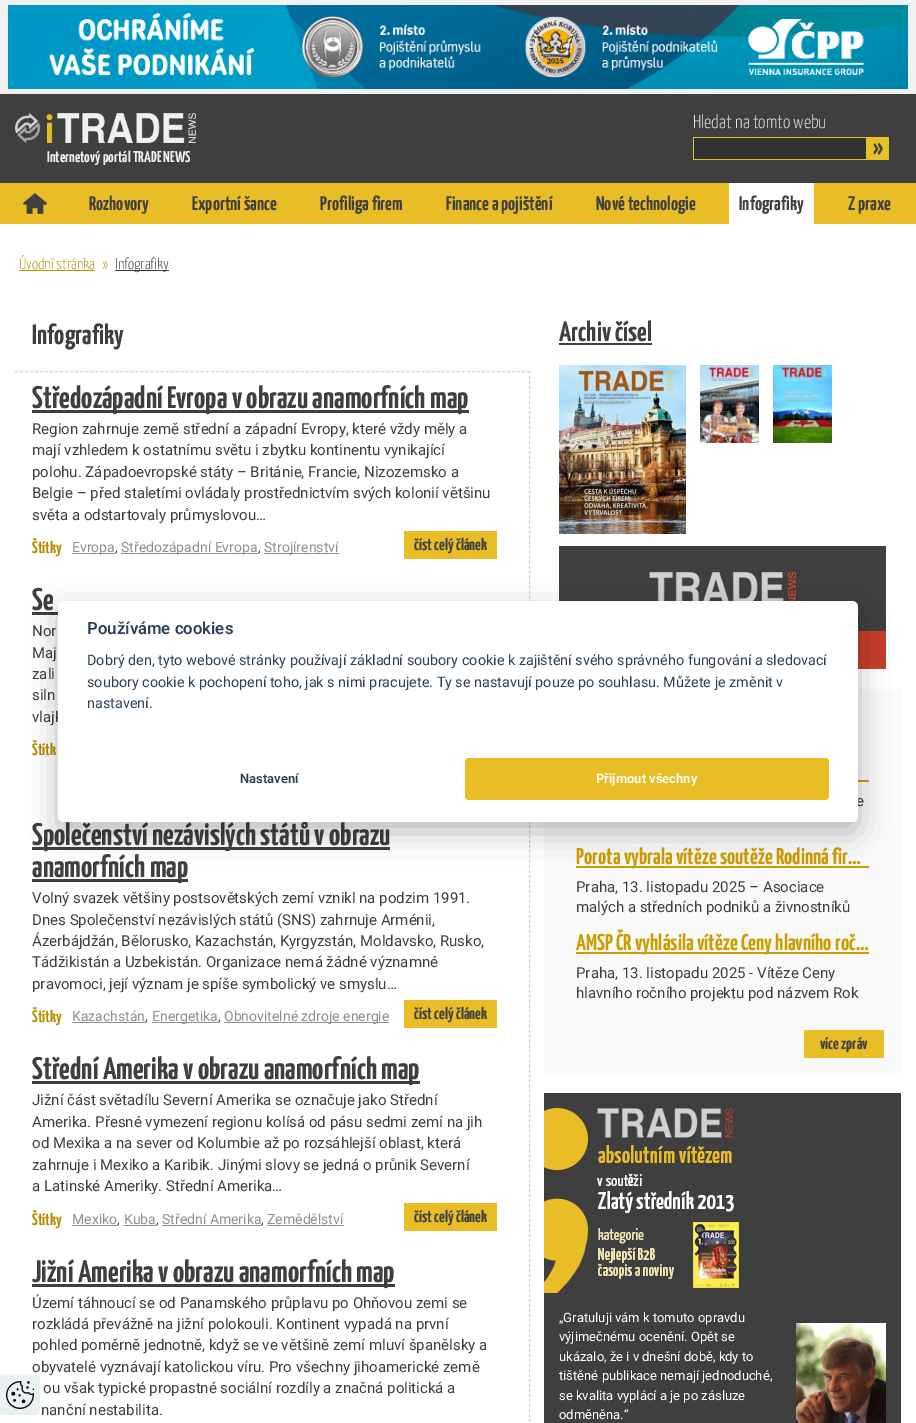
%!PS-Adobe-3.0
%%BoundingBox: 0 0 916 1423
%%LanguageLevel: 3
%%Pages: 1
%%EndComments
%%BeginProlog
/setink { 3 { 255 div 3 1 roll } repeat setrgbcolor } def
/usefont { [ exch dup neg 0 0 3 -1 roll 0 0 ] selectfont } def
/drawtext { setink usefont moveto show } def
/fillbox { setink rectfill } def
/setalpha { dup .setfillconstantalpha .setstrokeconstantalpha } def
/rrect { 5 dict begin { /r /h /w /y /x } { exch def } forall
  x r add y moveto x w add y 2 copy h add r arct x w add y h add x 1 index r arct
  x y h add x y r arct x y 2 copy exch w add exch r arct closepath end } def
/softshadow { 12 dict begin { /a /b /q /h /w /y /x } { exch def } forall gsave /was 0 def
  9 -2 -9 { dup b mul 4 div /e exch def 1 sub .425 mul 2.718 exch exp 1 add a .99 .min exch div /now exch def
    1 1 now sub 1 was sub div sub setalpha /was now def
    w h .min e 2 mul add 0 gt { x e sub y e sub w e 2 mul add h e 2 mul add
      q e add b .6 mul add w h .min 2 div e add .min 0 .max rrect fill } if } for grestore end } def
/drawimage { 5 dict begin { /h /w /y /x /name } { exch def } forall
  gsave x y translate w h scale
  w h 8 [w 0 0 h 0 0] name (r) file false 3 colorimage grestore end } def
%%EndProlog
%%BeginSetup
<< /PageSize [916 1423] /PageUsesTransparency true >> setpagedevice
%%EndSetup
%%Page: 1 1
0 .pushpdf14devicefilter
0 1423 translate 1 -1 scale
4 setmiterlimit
0 0 916 1423 255 255 255 fillbox
0 0 916 94 241 241 241 fillbox
(assets/img1.rgb) 8 5 900 84 drawimage
0 94 916 89 63 63 63 fillbox
(Hledat na tomto webu) 693 128 /YanoneKaffeesatz-Light 18 231 231 231 drawtext
694 138 172 21 50 50 50 fillbox
693 137 173 1 231 192 37 fillbox
693 159 173 1 231 192 37 fillbox
693 137 1 23 231 192 37 fillbox
866 137 23 23 231 192 37 fillbox
(assets/img2.rgb) 873 142 10 13 drawimage
(assets/img3.rgb) 15 113 181 30 drawimage
(Internetový portál TRADE NEWS) 47 162 /YanoneKaffeesatz-Bold 15 240 240 240 drawtext
0 183 916 41 232 189 38 fillbox
(assets/img4.rgb) 23 193 24 21 drawimage
(Rozhovory) 89 210 /YanoneKaffeesatz-Bold 19 63 63 63 drawtext
(Exportní šance) 192 210 /YanoneKaffeesatz-Bold 19 63 63 63 drawtext
(Profiliga firem) 320 210 /YanoneKaffeesatz-Bold 19 63 63 63 drawtext
(Finance a pojištění) 446 210 /YanoneKaffeesatz-Bold 19 63 63 63 drawtext
(Nové technologie) 596 210 /YanoneKaffeesatz-Bold 19 63 63 63 drawtext
729 183 85 41 255 255 255 fillbox
(Infografiky) 739 210 /YanoneKaffeesatz-Bold 19 63 63 63 drawtext
(Z praxe) 848 210 /YanoneKaffeesatz-Bold 19 63 63 63 drawtext
(Úvodní stránka) 19 269 /YanoneKaffeesatz-Light 15 180 143 0 drawtext
19 270 76 1 180 143 0 fillbox
(») 102 269 /YanoneKaffeesatz-Light 15 180 143 0 drawtext
115 270 54 1 63 63 63 fillbox
(Infografiky) 115 269 /YanoneKaffeesatz-Light 15 63 63 63 drawtext
(Infografiky) 32 344 /YanoneKaffeesatz-Bold 27 63 63 63 drawtext
209 209 209 setink
[3 2.02] 0 setdash
15 371.5 moveto 530 371.5 lineto stroke
[3 1.99] 0 setdash
529.5 371 moveto 529.5 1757 lineto stroke
32 410 437 3 63 63 63 fillbox
(Středozápadní Evropa v obrazu anamorfních map) 32 408 /YanoneKaffeesatz-Bold 30 63 63 63 drawtext
(Region zahrnuje země střední a západní Evropy, které vždy měly a) 32 434 /Roboto-Regular 15 63 63 63 drawtext
(mají vzhledem k ostatnímu světu i zbytku kontinentu vynikající) 32 455 /Roboto-Regular 15 63 63 63 drawtext
(polohu. Západoevropské státy – Británie, Francie, Nizozemsko a) 32 477 /Roboto-Regular 15 63 63 63 drawtext
(Belgie – před staletími ovládaly prostřednictvím svých kolonií většinu) 32 498 /Roboto-Regular 15 63 63 63 drawtext
(světa a odstartovaly průmyslovou…) 32 520 /Roboto-Regular 15 63 63 63 drawtext
(Štítky) 32 553 /YanoneKaffeesatz-Bold 16 180 143 0 drawtext
72 553 43 1 143 143 143 fillbox
(Evropa) 72 552 /Roboto-Regular 14 143 143 143 drawtext
(,) 115 552 /Roboto-Regular 14 63 63 63 drawtext
121 553 137 1 143 143 143 fillbox
(Středozápadní Evropa) 121 552 /Roboto-Regular 14 143 143 143 drawtext
(,) 258 552 /Roboto-Regular 14 63 63 63 drawtext
264 553 75 1 143 143 143 fillbox
(Strojírenství) 264 552 /Roboto-Regular 14 143 143 143 drawtext
404 531 93 28 232 189 38 fillbox
(číst celý článek) 414 550 /YanoneKaffeesatz-Bold 16 63 63 63 drawtext
(Se) 32 610 /YanoneKaffeesatz-Bold 30 63 63 63 drawtext
32 612 26 3 63 63 63 fillbox
(Nor) 32 636 /Roboto-Regular 15 63 63 63 drawtext
(Maj) 32 658 /Roboto-Regular 15 63 63 63 drawtext
(zali) 32 679 /Roboto-Regular 15 63 63 63 drawtext
(siln) 32 700 /Roboto-Regular 15 63 63 63 drawtext
(vlajk) 32 722 /Roboto-Regular 15 63 63 63 drawtext
(Štítk) 32 755 /YanoneKaffeesatz-Bold 16 180 143 0 drawtext
32 847 358 3 63 63 63 fillbox
(Společenství nezávislých států v obrazu) 32 845 /YanoneKaffeesatz-Bold 30 63 63 63 drawtext
32 879 156 3 63 63 63 fillbox
(anamorfních map) 32 877 /YanoneKaffeesatz-Bold 30 63 63 63 drawtext
(Volný svazek většiny postsovětských zemí vznikl na podzim 1991.) 32 903 /Roboto-Regular 15 63 63 63 drawtext
(Dnes Společenství nezávislých států \(SNS\) zahrnuje Arménii,) 32 925 /Roboto-Regular 15 63 63 63 drawtext
(Ázerbájdžán, Bělorusko, Kazachstán, Kyrgyzstán, Moldavsko, Rusko,) 32 946 /Roboto-Regular 15 63 63 63 drawtext
(Tádžikistán a Uzbekistán. Organizace nemá žádné významné) 32 967 /Roboto-Regular 15 63 63 63 drawtext
(pravomoci, její význam je spíše symbolický ve smyslu…) 32 989 /Roboto-Regular 15 63 63 63 drawtext
(Štítky) 32 1022 /YanoneKaffeesatz-Bold 16 180 143 0 drawtext
(Kazachstán) 72 1021 /Roboto-Regular 14 143 143 143 drawtext
72 1022 73 1 143 143 143 fillbox
(,) 145 1021 /Roboto-Regular 14 63 63 63 drawtext
152 1022 66 1 143 143 143 fillbox
(Energetika) 152 1021 /Roboto-Regular 14 143 143 143 drawtext
(,) 218 1021 /Roboto-Regular 14 63 63 63 drawtext
224 1022 165 1 143 143 143 fillbox
(Obnovitelné zdroje energie) 224 1021 /Roboto-Regular 14 143 143 143 drawtext
404 1000 93 28 232 189 38 fillbox
(číst celý článek) 414 1019 /YanoneKaffeesatz-Bold 16 63 63 63 drawtext
32 1081 388 3 63 63 63 fillbox
(Střední Amerika v obrazu anamorfních map) 32 1079 /YanoneKaffeesatz-Bold 30 63 63 63 drawtext
(Jižní část světadílu Severní Amerika se označuje jako Střední) 32 1105 /Roboto-Regular 15 63 63 63 drawtext
(Amerika. Přesné vymezení regionu kolísá od pásu sedmi zemí na jih) 32 1127 /Roboto-Regular 15 63 63 63 drawtext
(od Mexika a na sever od Kolumbie až po rozsáhlejší oblast, která) 32 1148 /Roboto-Regular 15 63 63 63 drawtext
(zahrnuje i Mexiko a Karibik. Jinými slovy se jedná o průnik Severní) 32 1170 /Roboto-Regular 15 63 63 63 drawtext
(a Latinské Ameriky. Střední Amerika…) 32 1191 /Roboto-Regular 15 63 63 63 drawtext
(Štítky) 32 1225 /YanoneKaffeesatz-Bold 16 180 143 0 drawtext
(Mexiko) 72 1224 /Roboto-Regular 14 143 143 143 drawtext
72 1225 45 1 143 143 143 fillbox
(,) 117 1224 /Roboto-Regular 14 63 63 63 drawtext
(Kuba) 124 1224 /Roboto-Regular 14 143 143 143 drawtext
124 1225 32 1 143 143 143 fillbox
(,) 156 1224 /Roboto-Regular 14 63 63 63 drawtext
(Střední Amerika) 162 1224 /Roboto-Regular 14 143 143 143 drawtext
162 1225 99 1 143 143 143 fillbox
(,) 261 1224 /Roboto-Regular 14 63 63 63 drawtext
(Zemědělství) 267 1224 /Roboto-Regular 14 143 143 143 drawtext
267 1225 77 1 143 143 143 fillbox
404 1203 93 28 232 189 38 fillbox
(číst celý článek) 414 1222 /YanoneKaffeesatz-Bold 16 63 63 63 drawtext
32 1284 363 3 63 63 63 fillbox
(Jižní Amerika v obrazu anamorfních map) 32 1282 /YanoneKaffeesatz-Bold 30 63 63 63 drawtext
(Území táhnoucí se od Panamského průplavu po Ohňovou zemi se) 32 1308 /Roboto-Regular 15 63 63 63 drawtext
(rozkládá převážně na jižní polokouli. Kontinent vypadá na první) 32 1329 /Roboto-Regular 15 63 63 63 drawtext
(pohled poměrně jednotně, když se ve většině zemí mluví španělsky a) 32 1350 /Roboto-Regular 15 63 63 63 drawtext
(obyvatelé vyznávají katolickou víru. Pro všechny jihoamerické země) 32 1372 /Roboto-Regular 15 63 63 63 drawtext
(ou však typické propastné sociální rozdíly a značná politická a) 43 1393 /Roboto-Regular 15 63 63 63 drawtext
(nanční nestabilita.) 41 1415 /Roboto-Regular 15 63 63 63 drawtext
(Archiv čísel) 559 341 /YanoneKaffeesatz-Bold 27 63 63 63 drawtext
559 343 93 2 63 63 63 fillbox
(assets/img5.rgb) 559 365 127 169 drawimage
(assets/img6.rgb) 700 365 59 78 drawimage
(assets/img7.rgb) 773 365 59 78 drawimage
858 631 28 38 197 62 43 fillbox
559 546 327 85 63 63 63 fillbox
(assets/img8.rgb) 649 572 147 29 drawimage
544 689 357 384 249 249 249 fillbox
858 780 11 2 202 157 0 fillbox
(e) 856 806 /Roboto-Regular 15 63 63 63 drawtext
576 866 293 2 202 157 0 fillbox
(Porota vybrala vítěze soutěže Rodinná fir…) 576 864 /YanoneKaffeesatz-Bold 22 202 157 0 drawtext
(Praha, 13. listopadu 2025 – Asociace) 576 892 /Roboto-Regular 15 63 63 63 drawtext
(malých a středních podniků a živnostníků) 576 912 /Roboto-Regular 15 63 63 63 drawtext
576 952 293 2 202 157 0 fillbox
(AMSP ČR vyhlásila vítěze Ceny hlavního roč…) 576 950 /YanoneKaffeesatz-Bold 22 202 157 0 drawtext
(Praha, 13. listopadu 2025 - Vítěze Ceny) 576 978 /Roboto-Regular 15 63 63 63 drawtext
(hlavního ročního projektu pod názvem Rok) 576 998 /Roboto-Regular 15 63 63 63 drawtext
804 1030 80 28 232 189 38 fillbox
(více zpráv) 820 1049 /YanoneKaffeesatz-Bold 16 63 63 63 drawtext
544 1093 357 330 63 63 63 fillbox
(assets/img9.rgb) 544 1108 195 185 drawimage
(„Gratuluji vám k tomuto opravdu) 559 1322 /Roboto-Regular 13 255 255 255 drawtext
(výjimečnému ocenění. Opět se) 559 1341 /Roboto-Regular 13 255 255 255 drawtext
(ukázalo, že i v dnešní době, kdy to) 559 1361 /Roboto-Regular 13 255 255 255 drawtext
(tištěné publikace nemají jednoduché,) 559 1380 /Roboto-Regular 13 255 255 255 drawtext
(se kvalita vyplácí a je po zásluze) 559 1400 /Roboto-Regular 13 255 255 255 drawtext
(odměněna.“) 559 1419 /Roboto-Regular 13 255 255 255 drawtext
(assets/img10.rgb) 796 1323 90 100 drawimage
2 2 3 setink
58 611 800 221 6 15 0.28 softshadow
255 255 255 setink
58 601 800 221 6 rrect fill
(Používáme cookies) 87 634 /Roboto-SemiBold 16.75 45 65 86 drawtext
(Dobrý den, tyto webové stránky používají základní soubory cookie k zajištění svého správného fungování a sledovací) 87 665 /Roboto-Regular 14.4 45 65 86 drawtext
(soubory cookie k pochopení toho, jak s nimi pracujete. Ty se nastavují pouze po souhlasu. Můžete je změnit v) 87 687 /Roboto-Regular 14.4 45 65 86 drawtext
(nastavení.) 87 708 /Roboto-Regular 14.4 45 65 86 drawtext
(Nastavení) 240 783 /Roboto-SemiBold 13 45 65 86 drawtext
232 189 38 setink
465 758 364 42 4 rrect fill
(Přijmout všechny) 596 783 /Roboto-SemiBold 13 255 255 255 drawtext
234 239 242 setink
0 1375 moveto 36 1375 lineto 38 1375 40 1377 40 1379 curveto 40 1411 lineto 40 1413 38 1415 36 1415 curveto 0 1415 lineto closepath fill
(assets/img11.rgb) 6 1381 28 28 drawimage
.poppdf14devicefilter showpage
%%EOF
